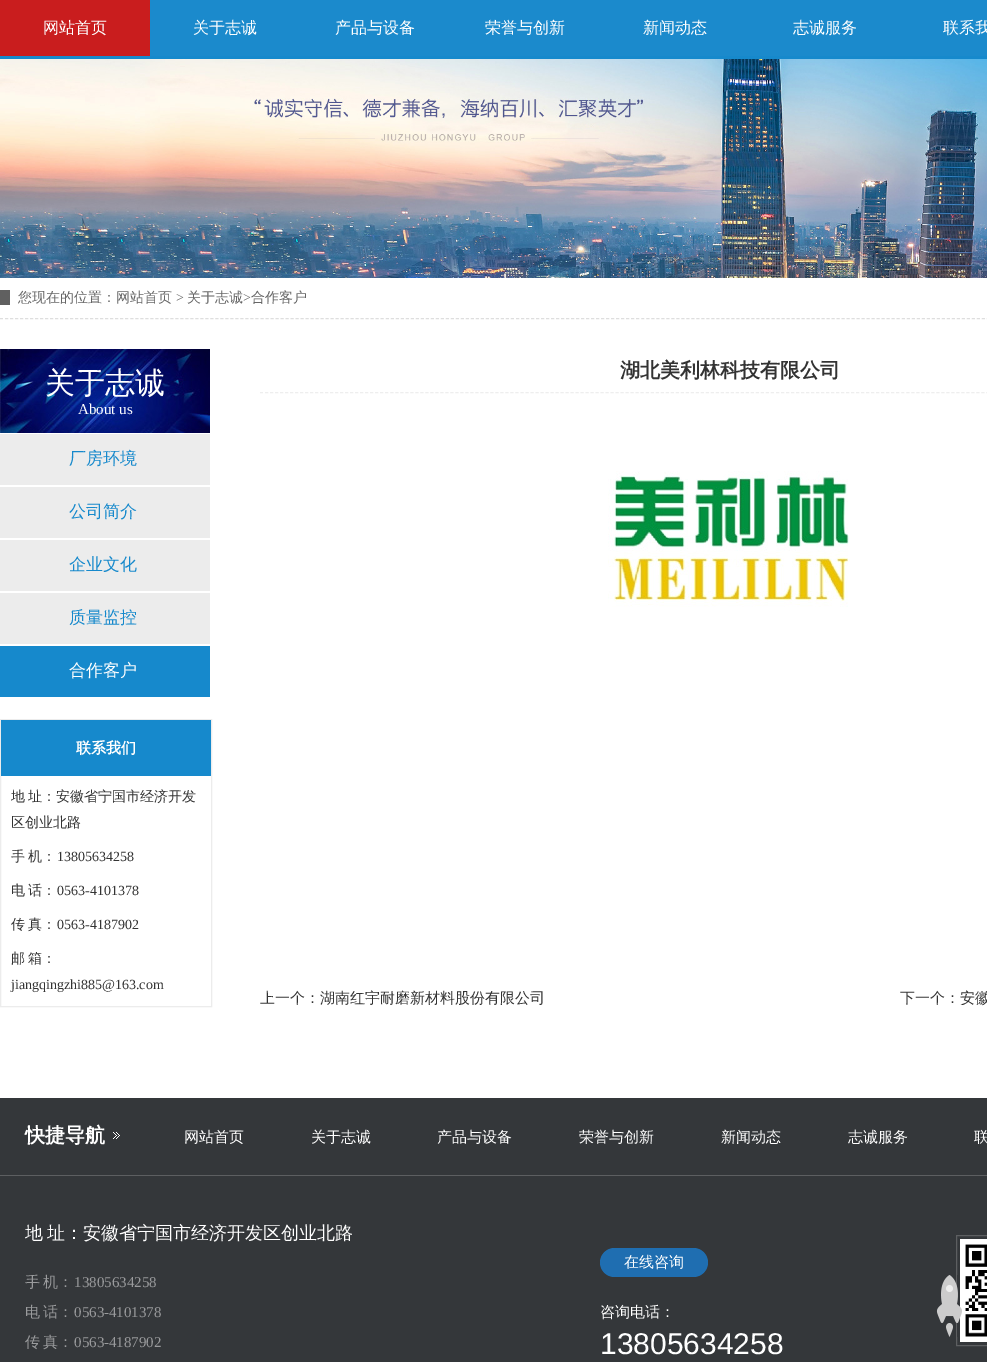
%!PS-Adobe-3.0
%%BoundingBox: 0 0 987 1362
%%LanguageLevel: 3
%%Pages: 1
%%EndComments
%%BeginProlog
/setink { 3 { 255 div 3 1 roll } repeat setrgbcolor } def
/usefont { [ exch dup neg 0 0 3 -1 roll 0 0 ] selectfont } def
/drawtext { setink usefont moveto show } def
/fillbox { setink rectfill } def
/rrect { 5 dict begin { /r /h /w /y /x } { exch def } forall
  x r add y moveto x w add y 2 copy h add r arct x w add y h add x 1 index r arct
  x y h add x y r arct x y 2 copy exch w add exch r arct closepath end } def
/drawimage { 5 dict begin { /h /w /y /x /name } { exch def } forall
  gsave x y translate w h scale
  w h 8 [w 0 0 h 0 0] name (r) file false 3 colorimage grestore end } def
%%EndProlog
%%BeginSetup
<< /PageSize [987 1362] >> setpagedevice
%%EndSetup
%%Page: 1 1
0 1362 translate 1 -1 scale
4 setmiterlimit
0 0 987 1362 255 255 255 fillbox
150 0 837 56 27 138 204 fillbox
0 56 987 3 22 137 204 fillbox
0 0 150 56 201 29 30 fillbox
(网站首页) 43 33 /WenQuanYiZenHei-Medium 16 255 255 255 drawtext
(关于志诚) 193 33 /WenQuanYiZenHei-Medium 16 255 255 255 drawtext
(产品与设备) 335 33 /WenQuanYiZenHei-Medium 16 255 255 255 drawtext
(荣誉与创新) 485 33 /WenQuanYiZenHei-Medium 16 255 255 255 drawtext
(新闻动态) 643 33 /WenQuanYiZenHei-Medium 16 255 255 255 drawtext
(志诚服务) 793 33 /WenQuanYiZenHei-Medium 16 255 255 255 drawtext
(联系我) 943 33 /WenQuanYiZenHei-Medium 16 255 255 255 drawtext
(assets/img1.rgb) 0 59 987 219 drawimage
222 222 222 setink
[3 2.01] 0 setdash
0 318.5 moveto 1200 318.5 lineto stroke
(您现在的位置：网站首页) 18 302 /WenQuanYiZenHei-Medium 14 102 102 102 drawtext
0 290 10 15 96 96 96 fillbox
(>) 176 302 /LiberationSerif-Regular 14 102 102 102 drawtext
(关于志诚) 187 302 /WenQuanYiZenHei-Medium 14 102 102 102 drawtext
(>) 243 302 /LiberationSerif-Regular 14 102 102 102 drawtext
(合作客户) 251 302 /WenQuanYiZenHei-Medium 14 102 102 102 drawtext
(assets/img2.rgb) 0 349 210 84 drawimage
(关于志诚) 45 393 /WenQuanYiZenHei-Medium 30 255 255 255 drawtext
(About us) 78 414 /LiberationSerif-Regular 15 255 255 255 drawtext
0 434 210 210 236 236 236 fillbox
0 485 210 2 255 255 255 fillbox
(厂房环境) 69 464 /WenQuanYiZenHei-Medium 17 22 137 204 drawtext
0 538 210 2 255 255 255 fillbox
(公司简介) 69 517 /WenQuanYiZenHei-Medium 17 22 137 204 drawtext
0 591 210 2 255 255 255 fillbox
(企业文化) 69 570 /WenQuanYiZenHei-Medium 17 22 137 204 drawtext
(质量监控) 69 623 /WenQuanYiZenHei-Medium 17 22 137 204 drawtext
0 646 210 51 22 137 204 fillbox
(合作客户) 69 676 /WenQuanYiZenHei-Medium 17 255 255 255 drawtext
236 236 236 setink
[] 0 setdash
0.5 719.5 211 287 rectstroke
1 720 210 56 22 137 204 fillbox
(联系我们) 76 753 /WenQuanYiZenHei-Bold 15 255 255 255 drawtext
/WenQuanYiZenHei-Medium 14 usefont
51 51 51 setink
11 801 moveto -1 0 32 (地 址：安徽省宁国市经济开发) widthshow
(区创业北路) 11 827 /WenQuanYiZenHei-Medium 14 51 51 51 drawtext
11 861 moveto -1 0 32 (手 机：) widthshow
(13805634258) 57 861 /LiberationSerif-Regular 14 51 51 51 drawtext
/WenQuanYiZenHei-Medium 14 usefont
11 895 moveto -1 0 32 (电 话：) widthshow
(0563-4101378) 57 895 /LiberationSerif-Regular 14 51 51 51 drawtext
/WenQuanYiZenHei-Medium 14 usefont
11 929 moveto -1 0 32 (传 真：) widthshow
(0563-4187902) 57 929 /LiberationSerif-Regular 14 51 51 51 drawtext
/WenQuanYiZenHei-Medium 14 usefont
11 963 moveto -1 0 32 (邮 箱：) widthshow
(jiangqingzhi885@163.com) 11 989 /LiberationSerif-Regular 14 51 51 51 drawtext
238 238 238 setink
[3 2.01] 0 setdash
260 392.5 moveto 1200 392.5 lineto stroke
(湖北美利林科技有限公司) 620 377 /WenQuanYiZenHei-Bold 20 51 51 51 drawtext
(assets/img3.rgb) 608 471 242 136 drawimage
(上一个：湖南红宇耐磨新材料股份有限公司) 260 1003 /WenQuanYiZenHei-Medium 15 51 51 51 drawtext
(下一个：安徽) 900 1003 /WenQuanYiZenHei-Medium 15 51 51 51 drawtext
0 1098 987 264 52 55 58 fillbox
0 1175 987 1 93 95 97 fillbox
(快捷导航) 25 1142 /WenQuanYiZenHei-Bold 20 255 255 255 drawtext
(assets/img4.rgb) 113 1132 7 7 drawimage
(网站首页) 184 1142 /WenQuanYiZenHei-Medium 15 255 255 255 drawtext
(关于志诚) 311 1142 /WenQuanYiZenHei-Medium 15 255 255 255 drawtext
(产品与设备) 437 1142 /WenQuanYiZenHei-Medium 15 255 255 255 drawtext
(荣誉与创新) 579 1142 /WenQuanYiZenHei-Medium 15 255 255 255 drawtext
(新闻动态) 721 1142 /WenQuanYiZenHei-Medium 15 255 255 255 drawtext
(志诚服务) 848 1142 /WenQuanYiZenHei-Medium 15 255 255 255 drawtext
(联) 974 1142 /WenQuanYiZenHei-Medium 15 255 255 255 drawtext
/WenQuanYiZenHei-Medium 18 usefont
25 1239 moveto -1 0 32 (地 址：安徽省宁国市经济开发区创业北路) widthshow
/WenQuanYiZenHei-Medium 15 usefont
154 155 157 setink
25 1287 moveto -1 0 32 (手 机：) widthshow
(13805634258) 74 1287 /LiberationSerif-Regular 15 154 155 157 drawtext
/WenQuanYiZenHei-Medium 15 usefont
25 1317 moveto -1 0 32 (电 话：) widthshow
(0563-4101378) 74 1317 /LiberationSerif-Regular 15 154 155 157 drawtext
/WenQuanYiZenHei-Medium 15 usefont
25 1347 moveto -1 0 32 (传 真：) widthshow
(0563-4187902) 74 1347 /LiberationSerif-Regular 15 154 155 157 drawtext
31 110 177 setink
600 1248 108 29 14.5 rrect fill
(在线咨询) 624 1267 /WenQuanYiZenHei-Medium 15 255 255 255 drawtext
(咨询电话：) 600 1317 /WenQuanYiZenHei-Medium 15 255 255 255 drawtext
(13805634258) 600 1354 /LiberationSans-Regular 30 255 255 255 drawtext
93 95 97 setink
[] 0 setdash
956.5 1235.5 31 110 rectstroke
(assets/img5.rgb) 960 1239 27 103 drawimage
(assets/img6.rgb) 936 1275 26 62 drawimage
showpage
%%EOF
